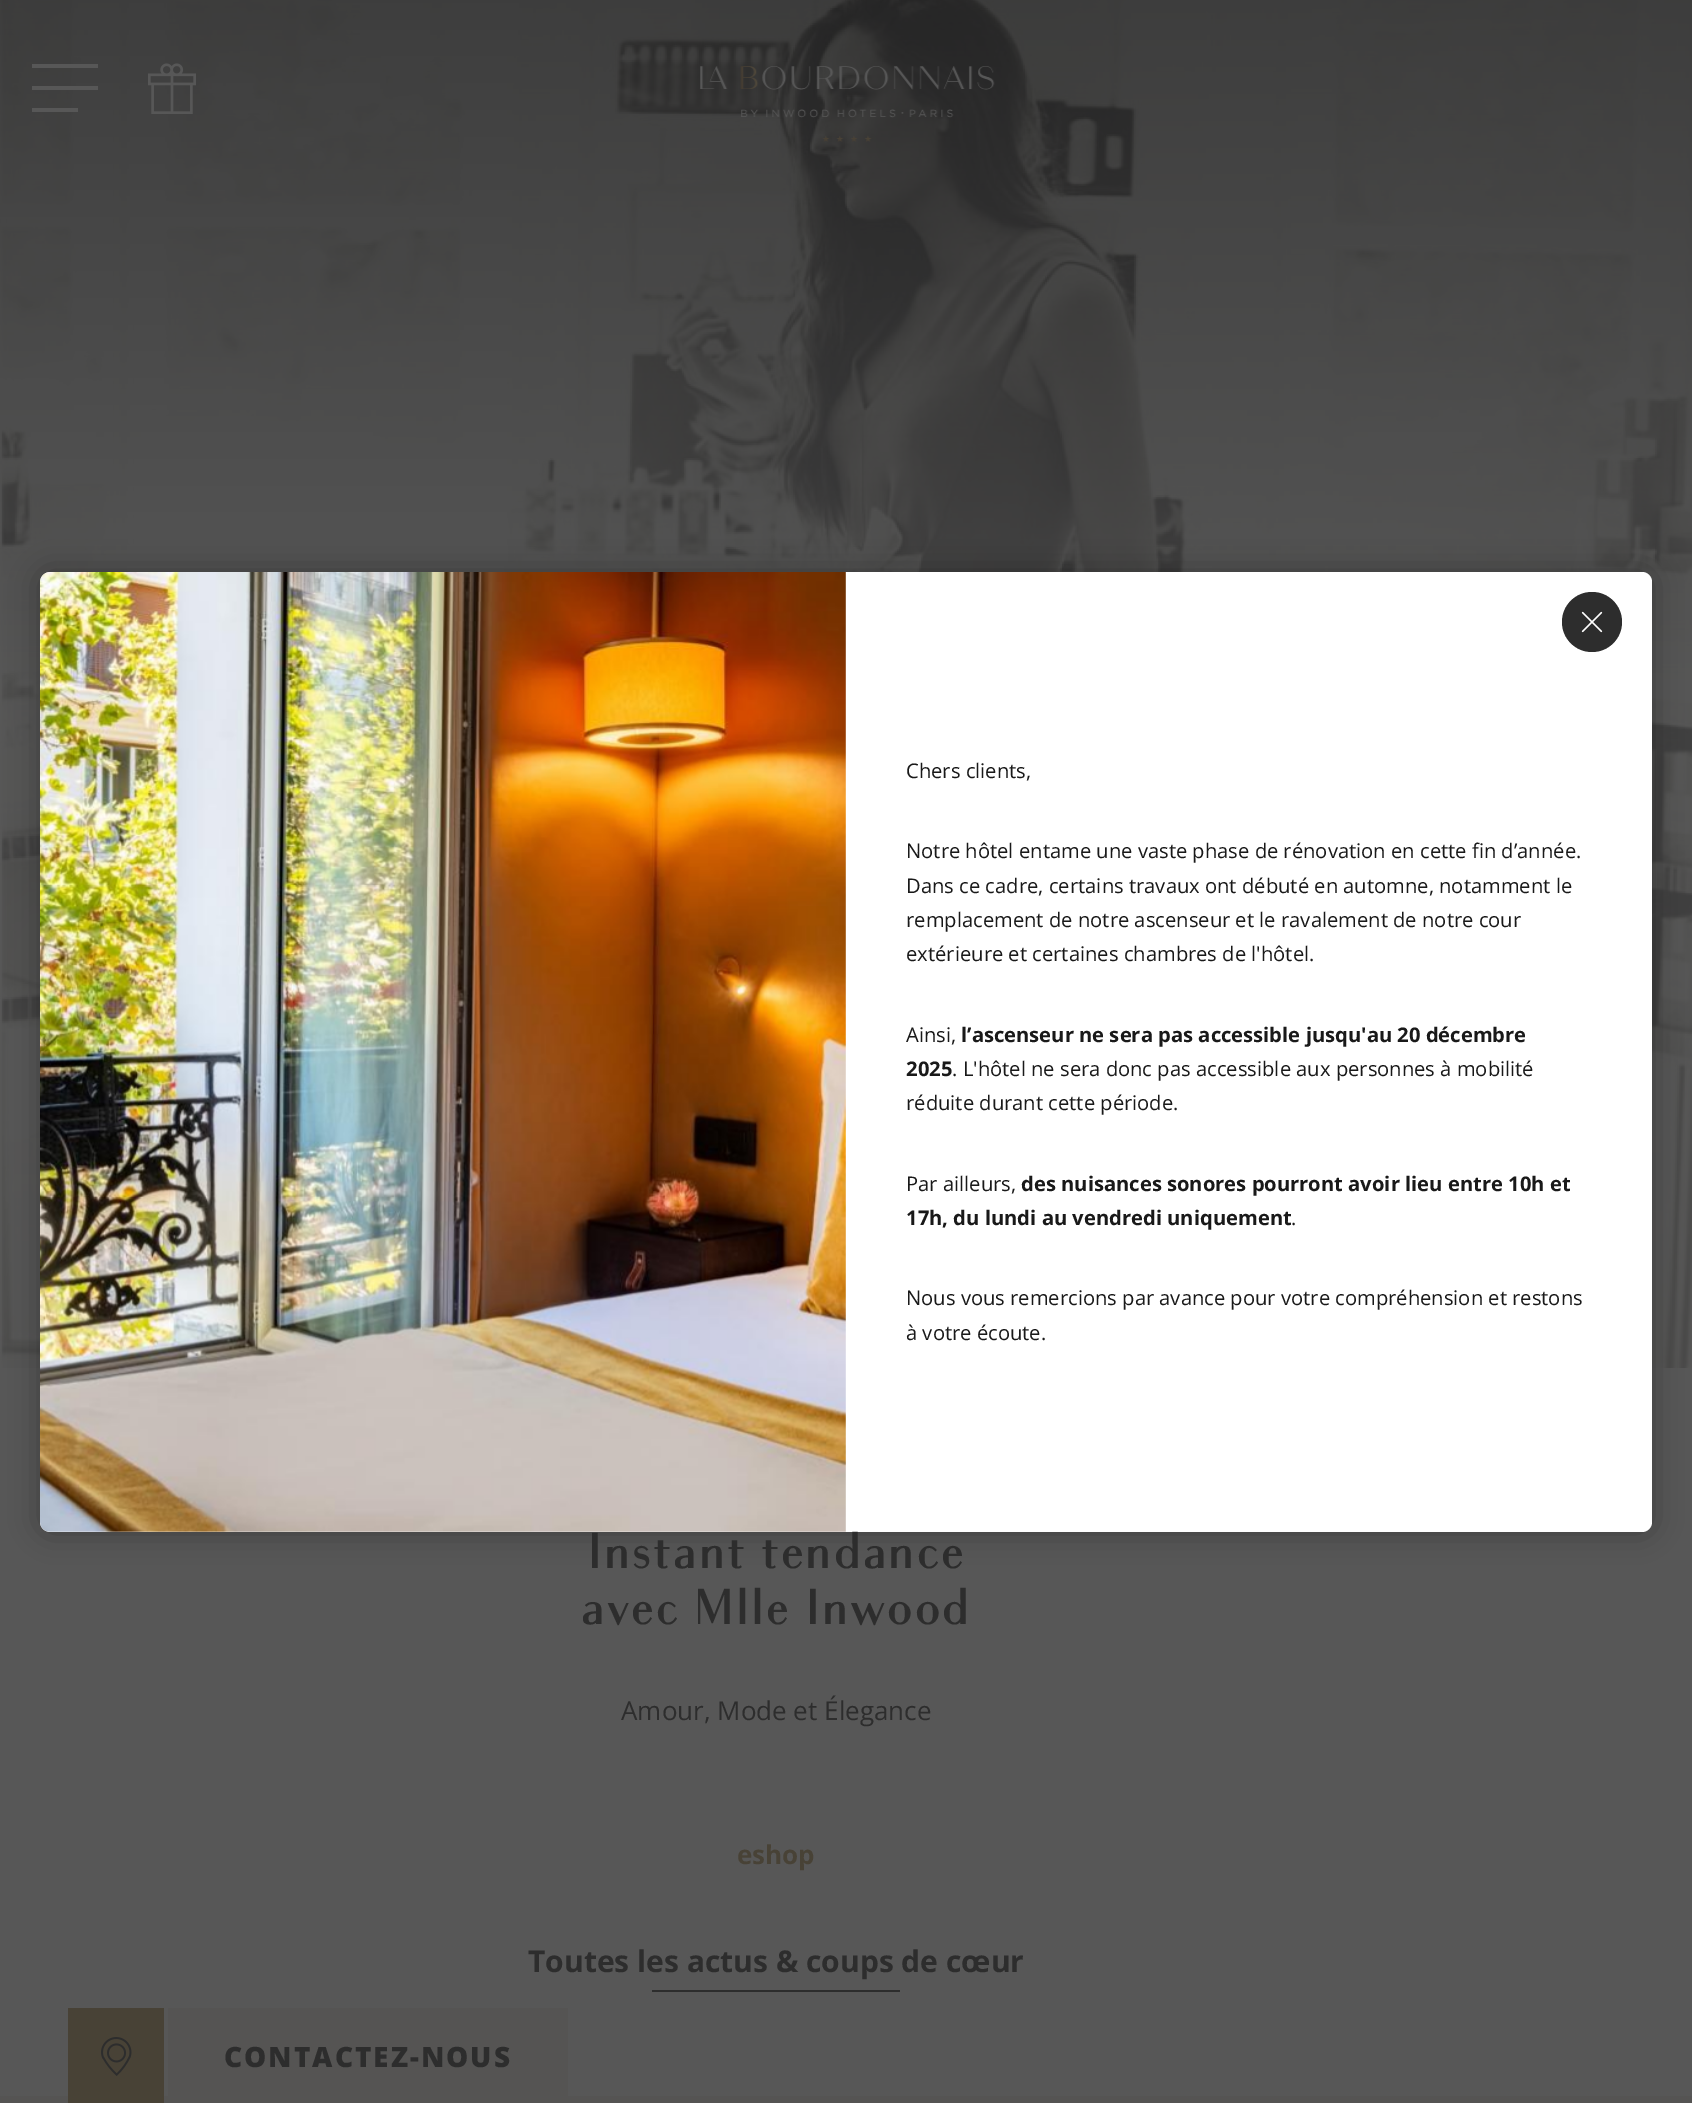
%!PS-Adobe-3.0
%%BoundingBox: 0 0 1692 2103
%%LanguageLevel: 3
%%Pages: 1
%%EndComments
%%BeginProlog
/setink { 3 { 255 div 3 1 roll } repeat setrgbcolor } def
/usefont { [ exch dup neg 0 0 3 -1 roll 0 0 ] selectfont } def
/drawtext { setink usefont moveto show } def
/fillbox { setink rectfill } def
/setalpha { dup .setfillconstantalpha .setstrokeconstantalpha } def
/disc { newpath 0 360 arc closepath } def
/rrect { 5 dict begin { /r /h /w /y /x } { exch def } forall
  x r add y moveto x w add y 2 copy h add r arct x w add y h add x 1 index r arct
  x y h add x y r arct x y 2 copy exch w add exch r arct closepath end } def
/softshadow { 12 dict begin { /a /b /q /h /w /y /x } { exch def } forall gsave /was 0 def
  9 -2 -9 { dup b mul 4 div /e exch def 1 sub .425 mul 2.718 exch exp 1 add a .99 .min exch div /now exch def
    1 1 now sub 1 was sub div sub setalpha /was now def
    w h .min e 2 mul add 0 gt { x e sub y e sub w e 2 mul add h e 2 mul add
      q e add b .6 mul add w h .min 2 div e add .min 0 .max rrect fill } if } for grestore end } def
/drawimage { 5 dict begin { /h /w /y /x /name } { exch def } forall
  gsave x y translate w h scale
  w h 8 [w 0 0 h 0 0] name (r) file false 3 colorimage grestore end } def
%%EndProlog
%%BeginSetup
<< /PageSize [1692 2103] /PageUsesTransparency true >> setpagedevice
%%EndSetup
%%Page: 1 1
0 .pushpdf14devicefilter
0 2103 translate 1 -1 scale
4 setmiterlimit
0 0 1692 2103 87 87 87 fillbox
(assets/img1.rgb) 0 0 1692 1368 drawimage
32 64 66 4 87 87 87 fillbox
32 86 66 4 87 87 87 fillbox
32 108 46 4 87 87 87 fillbox
(assets/img2.rgb) 148 63 48 51 drawimage
(assets/img3.rgb) 699 66 296 76 drawimage
0 0 0 setink
40 572 1612 960 10 15 0.3 softshadow
255 255 255 setink
40 572 1612 960 10 rrect fill
45 45 45 setink
1592 622 30 disc fill
(assets/img4.rgb) 1581 611 22 22 drawimage
(assets/img5.rgb) 40 572 806 960 drawimage
(Chers clients,) 906 778 /OpenSans-Regular 20.2 25 25 25 drawtext
(Notre hôtel entame une vaste phase de rénovation en cette fin d’année.) 906 858 /OpenSans-Regular 20.2 25 25 25 drawtext
(Dans ce cadre, certains travaux ont débuté en automne, notamment le) 906 893 /OpenSans-Regular 20.2 25 25 25 drawtext
(remplacement de notre ascenseur et le ravalement de notre cour) 906 927 /OpenSans-Regular 20.2 25 25 25 drawtext
(extérieure et certaines chambres de l'hôtel.) 906 961 /OpenSans-Regular 20.2 25 25 25 drawtext
(Ainsi,) 906 1042 /OpenSans-Regular 20.2 25 25 25 drawtext
(l’ascenseur ne sera pas accessible jusqu'au 20 décembre) 961 1042 /OpenSans-Bold 20.2 25 25 25 drawtext
(2025) 906 1076 /OpenSans-Bold 20.2 25 25 25 drawtext
(. L'hôtel ne sera donc pas accessible aux personnes à mobilité) 952 1076 /OpenSans-Regular 20.2 25 25 25 drawtext
(réduite durant cette période.) 906 1110 /OpenSans-Regular 20.2 25 25 25 drawtext
(Par ailleurs,) 906 1191 /OpenSans-Regular 20.2 25 25 25 drawtext
(des nuisances sonores pourront avoir lieu entre 10h et) 1021 1191 /OpenSans-Bold 20.2 25 25 25 drawtext
(17h, du lundi au vendredi uniquement) 906 1225 /OpenSans-Bold 20.2 25 25 25 drawtext
(.) 1291 1225 /OpenSans-Regular 20.2 25 25 25 drawtext
(Nous vous remercions par avance pour votre compréhension et restons) 906 1305 /OpenSans-Regular 20.2 25 25 25 drawtext
(à votre écoute.) 906 1340 /OpenSans-Regular 20.2 25 25 25 drawtext
/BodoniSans-Bold 48 usefont
45 45 45 setink
587 1568 moveto 4 0 (Instant tendance) ashow
581 1624 moveto 4 0 (avec Mlle Inwood) ashow
(Amour, Mode et Élegance) 621 1720 /OpenSans-Regular 26 45 45 45 drawtext
(eshop) 737 1864 /OpenSans-Bold 26 72 66 54 drawtext
(Toutes les actus & coups de cœur) 528 1972 /OpenSans-Bold 30 45 45 45 drawtext
652 1990 248 2 45 45 45 fillbox
0 2096 1692 7 85 84 83 fillbox
68 2008 96 95 72 66 54 fillbox
(assets/img6.rgb) 101 2037 31 39 drawimage
168 2008 400 88 85 84 83 fillbox
/OpenSans-ExtraBold 28 usefont
45 45 45 setink
224 2067 moveto 2 0 (CONTACTEZ-NOUS) ashow
.poppdf14devicefilter showpage
%%EOF
